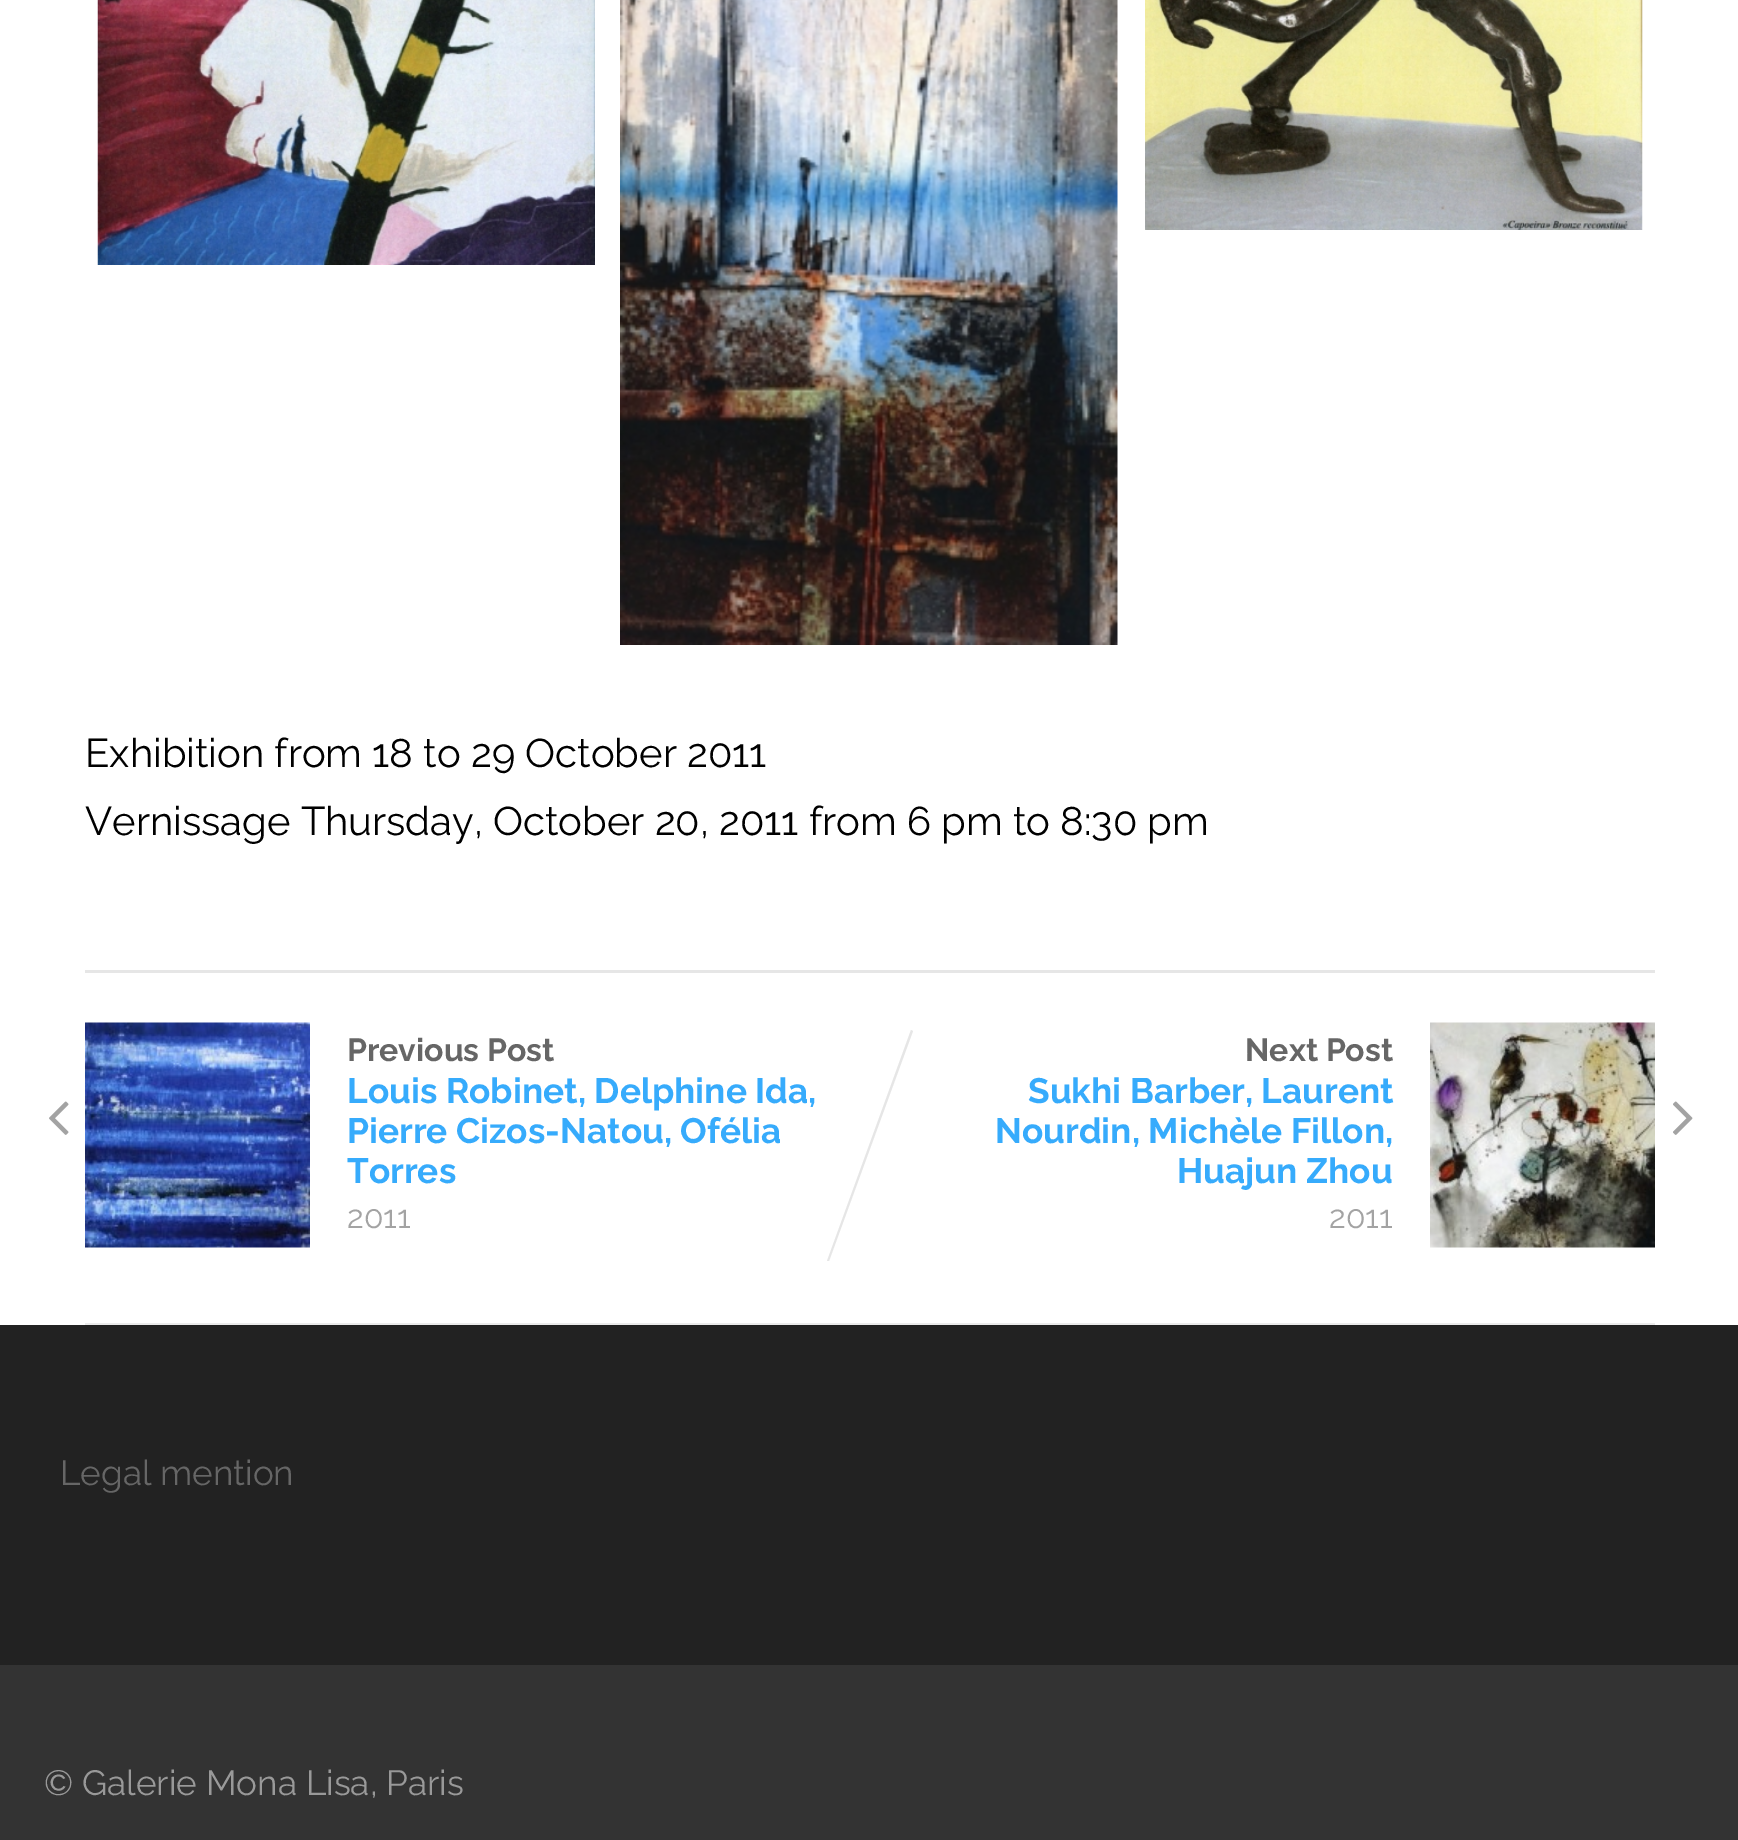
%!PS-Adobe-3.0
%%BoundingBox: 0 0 1738 1840
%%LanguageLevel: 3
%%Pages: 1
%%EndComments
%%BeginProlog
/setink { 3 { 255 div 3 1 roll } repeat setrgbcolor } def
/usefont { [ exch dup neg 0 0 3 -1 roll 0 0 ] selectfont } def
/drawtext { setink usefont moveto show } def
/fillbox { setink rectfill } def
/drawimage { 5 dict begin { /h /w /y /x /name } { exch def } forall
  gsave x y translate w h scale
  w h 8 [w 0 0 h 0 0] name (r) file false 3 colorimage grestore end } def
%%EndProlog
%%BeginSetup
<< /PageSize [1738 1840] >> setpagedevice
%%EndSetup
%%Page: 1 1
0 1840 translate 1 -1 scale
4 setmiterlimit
0 0 1738 1840 255 255 255 fillbox
85 1323 1570 2 235 235 235 fillbox
(assets/img1.rgb) 97 0 498 265 drawimage
(assets/img2.rgb) 620 0 498 645 drawimage
(assets/img3.rgb) 1145 0 498 230 drawimage
(Exhibition from 18 to 29 October 2011) 85 767 /Raleway-Regular 40 0 0 0 drawtext
(Vernissage Thursday, October 20, 2011 from 6 pm to 8:30 pm) 85 835 /Raleway-Regular 40 0 0 0 drawtext
85 970 1570 3 230 230 230 fillbox
(assets/img4.rgb) 85 1022 225 226 drawimage
(Previous Post) 347 1061 /Raleway-Bold 32 102 102 102 drawtext
(assets/img5.rgb) 49 1101 20 34 drawimage
(Louis Robinet, Delphine Ida,) 347 1103 /Raleway-Bold 35.25 54 171 252 drawtext
(Pierre Cizos-Natou, Ofélia) 347 1143 /Raleway-Bold 35.25 54 171 252 drawtext
(Torres) 347 1183 /Raleway-Bold 35.25 54 171 252 drawtext
(2011) 347 1228 /Raleway-Regular 32 163 163 163 drawtext
230 230 230 setink
911 1030 moveto 913 1031 lineto 829 1261 lineto 827 1261 lineto closepath fill
(Next Post) 1245 1061 /Raleway-Bold 32 102 102 102 drawtext
(assets/img6.rgb) 1430 1022 225 226 drawimage
(Sukhi Barber, Laurent) 1028 1103 /Raleway-Bold 35.25 54 171 252 drawtext
(Nourdin, Michèle Fillon,) 995 1143 /Raleway-Bold 35.25 54 171 252 drawtext
(Huajun Zhou) 1177 1183 /Raleway-Bold 35.25 54 171 252 drawtext
(assets/img7.rgb) 1673 1101 20 34 drawimage
(2011) 1329 1228 /Raleway-Regular 32 163 163 163 drawtext
0 1325 1738 340 34 34 34 fillbox
85 1325 1570 1 31 31 31 fillbox
(Legal mention) 60 1485 /Raleway-Regular 35 102 102 102 drawtext
0 1665 1738 175 51 51 51 fillbox
(© Galerie Mona Lisa, Paris) 44 1795 /Raleway-Regular 35 153 153 153 drawtext
showpage
%%EOF
